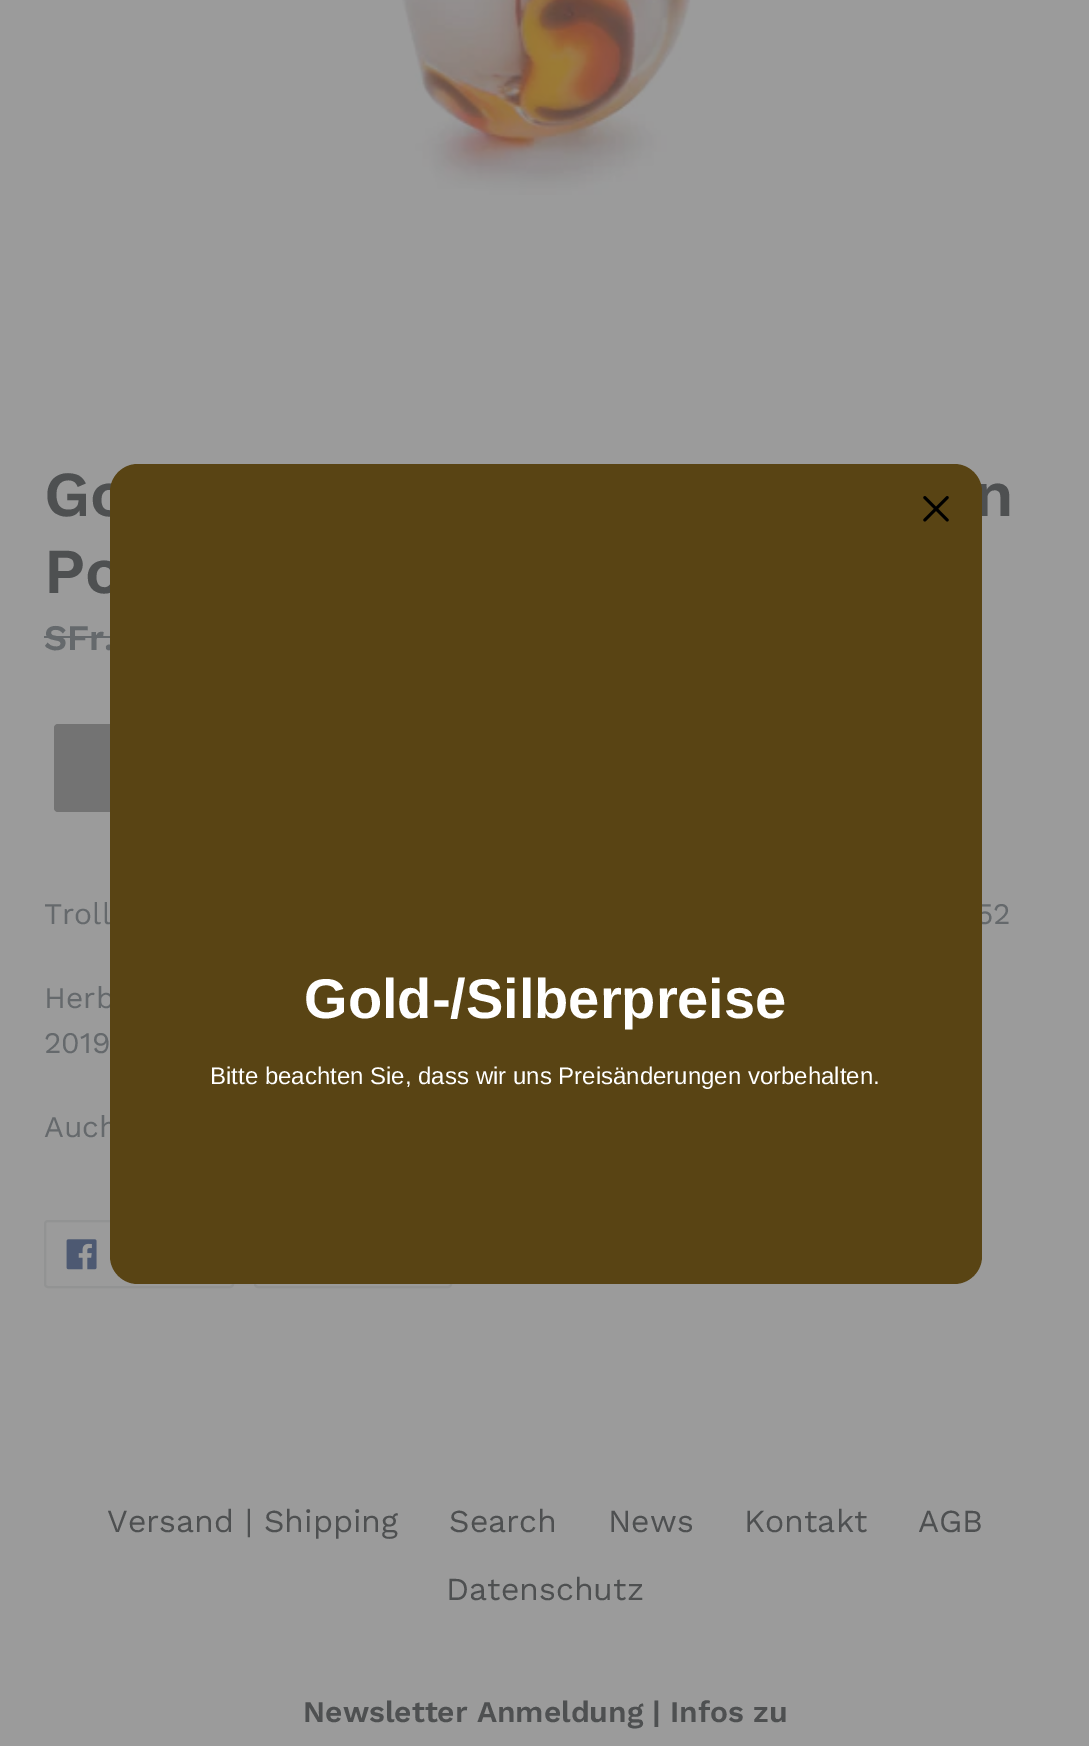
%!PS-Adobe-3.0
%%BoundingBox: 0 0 1089 1746
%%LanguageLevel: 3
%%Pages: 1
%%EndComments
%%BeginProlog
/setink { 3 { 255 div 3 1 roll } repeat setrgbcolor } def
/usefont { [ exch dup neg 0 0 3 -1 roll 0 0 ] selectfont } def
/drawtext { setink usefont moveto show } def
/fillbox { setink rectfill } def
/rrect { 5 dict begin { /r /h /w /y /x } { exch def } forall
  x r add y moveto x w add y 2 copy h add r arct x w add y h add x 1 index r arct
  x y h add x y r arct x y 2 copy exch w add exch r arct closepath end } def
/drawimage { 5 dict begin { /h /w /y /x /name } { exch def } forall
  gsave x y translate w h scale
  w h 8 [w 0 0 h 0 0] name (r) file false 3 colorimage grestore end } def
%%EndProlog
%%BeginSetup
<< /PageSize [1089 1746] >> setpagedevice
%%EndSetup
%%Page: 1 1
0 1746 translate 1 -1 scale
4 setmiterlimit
0 0 1089 1746 155 155 155 fillbox
(assets/img1.rgb) 402 0 289 195 drawimage
(Go) 44 516 /WorkSans-SemiBold 64 78 80 81 drawtext
(n) 974 516 /WorkSans-SemiBold 64 78 80 81 drawtext
(Po) 44 593 /WorkSans-SemiBold 64 78 80 81 drawtext
(SFr.) 44 650 /WorkSans-SemiBold 36 101 105 108 drawtext
44 636 66 2 101 105 108 fillbox
115 115 115 setink
54 724 780 88 4 rrect fill
(Troll) 44 924 /WorkSans-Regular 30 101 105 108 drawtext
(52) 976 924 /WorkSans-Regular 30 101 105 108 drawtext
(Herb) 44 1008 /WorkSans-Regular 30 101 105 108 drawtext
(2019) 44 1053 /WorkSans-Regular 30 101 105 108 drawtext
(Auch) 44 1137 /WorkSans-Regular 30 101 105 108 drawtext
146 147 147 setink
2 setlinewidth
45 1221 188 66 3 rrect stroke
(assets/img2.rgb) 66 1239 31 31 drawimage
255 1221 196 66 3 rrect stroke
(Versand | Shipping) 107 1532 /WorkSans-Regular 32 78 80 81 drawtext
(Search) 449 1532 /WorkSans-Regular 32 78 80 81 drawtext
(News) 608 1532 /WorkSans-Regular 32 78 80 81 drawtext
(Kontakt) 744 1532 /WorkSans-Regular 32 78 80 81 drawtext
(AGB) 918 1532 /WorkSans-Regular 32 78 80 81 drawtext
(Datenschutz) 446 1600 /WorkSans-Regular 32 78 80 81 drawtext
(Newsletter Anmeldung | Infos zu) 303 1722 /WorkSans-SemiBold 30 78 80 81 drawtext
89 68 20 setink
110 464 872 820 28 rrect fill
(assets/img3.rgb) 923 496 26 26 drawimage
(Gold-/Silberpreise) 304 1018 /LiberationSans-Bold 56 255 255 255 drawtext
(Bitte beachten Sie, dass wir uns Preisänderungen vorbehalten.) 210 1084 /LiberationSans-Regular 24 255 255 255 drawtext
showpage
%%EOF
